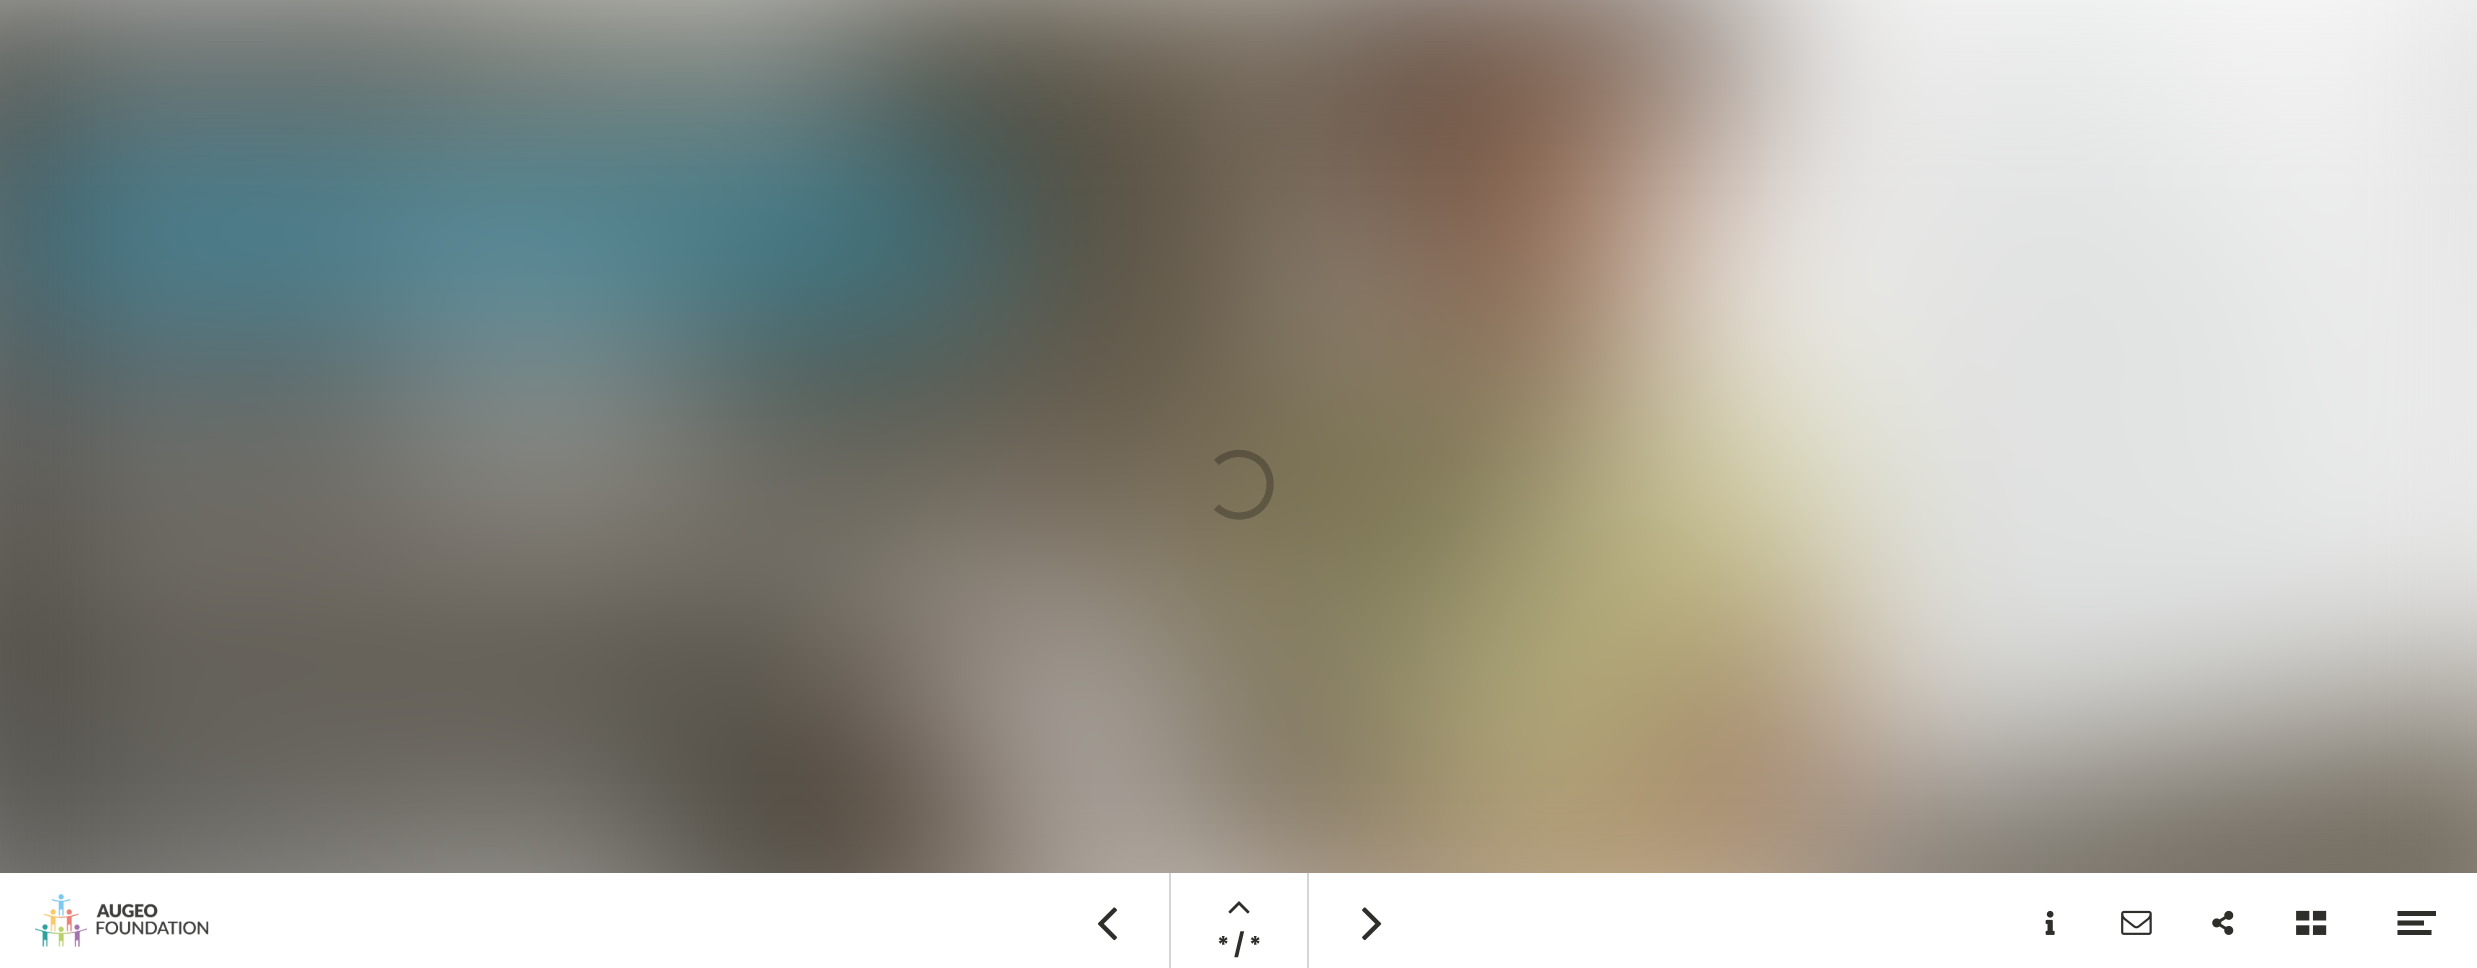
%!PS-Adobe-3.0
%%BoundingBox: 0 0 2477 968
%%LanguageLevel: 3
%%Pages: 1
%%EndComments
%%BeginProlog
/setink { 3 { 255 div 3 1 roll } repeat setrgbcolor } def
/usefont { [ exch dup neg 0 0 3 -1 roll 0 0 ] selectfont } def
/drawtext { setink usefont moveto show } def
/fillbox { setink rectfill } def
/setalpha { dup .setfillconstantalpha .setstrokeconstantalpha } def
/drawimage { 5 dict begin { /h /w /y /x /name } { exch def } forall
  gsave x y translate w h scale
  w h 8 [w 0 0 h 0 0] name (r) file false 3 colorimage grestore end } def
%%EndProlog
%%BeginSetup
<< /PageSize [2477 968] /PageUsesTransparency true >> setpagedevice
%%EndSetup
%%Page: 1 1
0 .pushpdf14devicefilter
0 968 translate 1 -1 scale
4 setmiterlimit
0 0 2477 968 255 255 255 fillbox
(assets/img1.rgb) 0 0 2477 873 drawimage
0.25 setalpha
0 0 0 setink
7 setlinewidth
1216.5 462.5 moveto 1224 455 1235 452 1245 454 curveto 1282 461 1276.5 516 1239 516 curveto 1230.5 516 1222.5 513 1216.5 507 curveto stroke
1 setalpha
(assets/img2.rgb) 35 894 174 53 drawimage
(assets/img3.rgb) 2045 910 10 25 drawimage
(assets/img4.rgb) 2121 910 31 25 drawimage
(assets/img5.rgb) 2212 910 22 25 drawimage
(assets/img6.rgb) 2296 910 31 25 drawimage
46 46 43 setink
2397.5 911 moveto 2436 911 lineto 2436 916 lineto 2397.5 916 lineto closepath 2397.5 920.5 moveto 2424 920.5 lineto 2424 925.5 lineto 2397.5 925.5 lineto closepath 2397.5 930 moveto 2431.5 930 lineto 2431.5 935 lineto 2397.5 935 lineto closepath fill
(assets/img7.rgb) 1097 907 20 34 drawimage
1169 873 2 95 213 213 213 fillbox
1307 873 2 95 213 213 213 fillbox
(assets/img8.rgb) 1362 907 20 34 drawimage
(assets/img9.rgb) 1228 901 22 13 drawimage
(* / *) 1217 953 /Poppins-Bold 23 46 46 43 drawtext
.poppdf14devicefilter showpage
%%EOF
